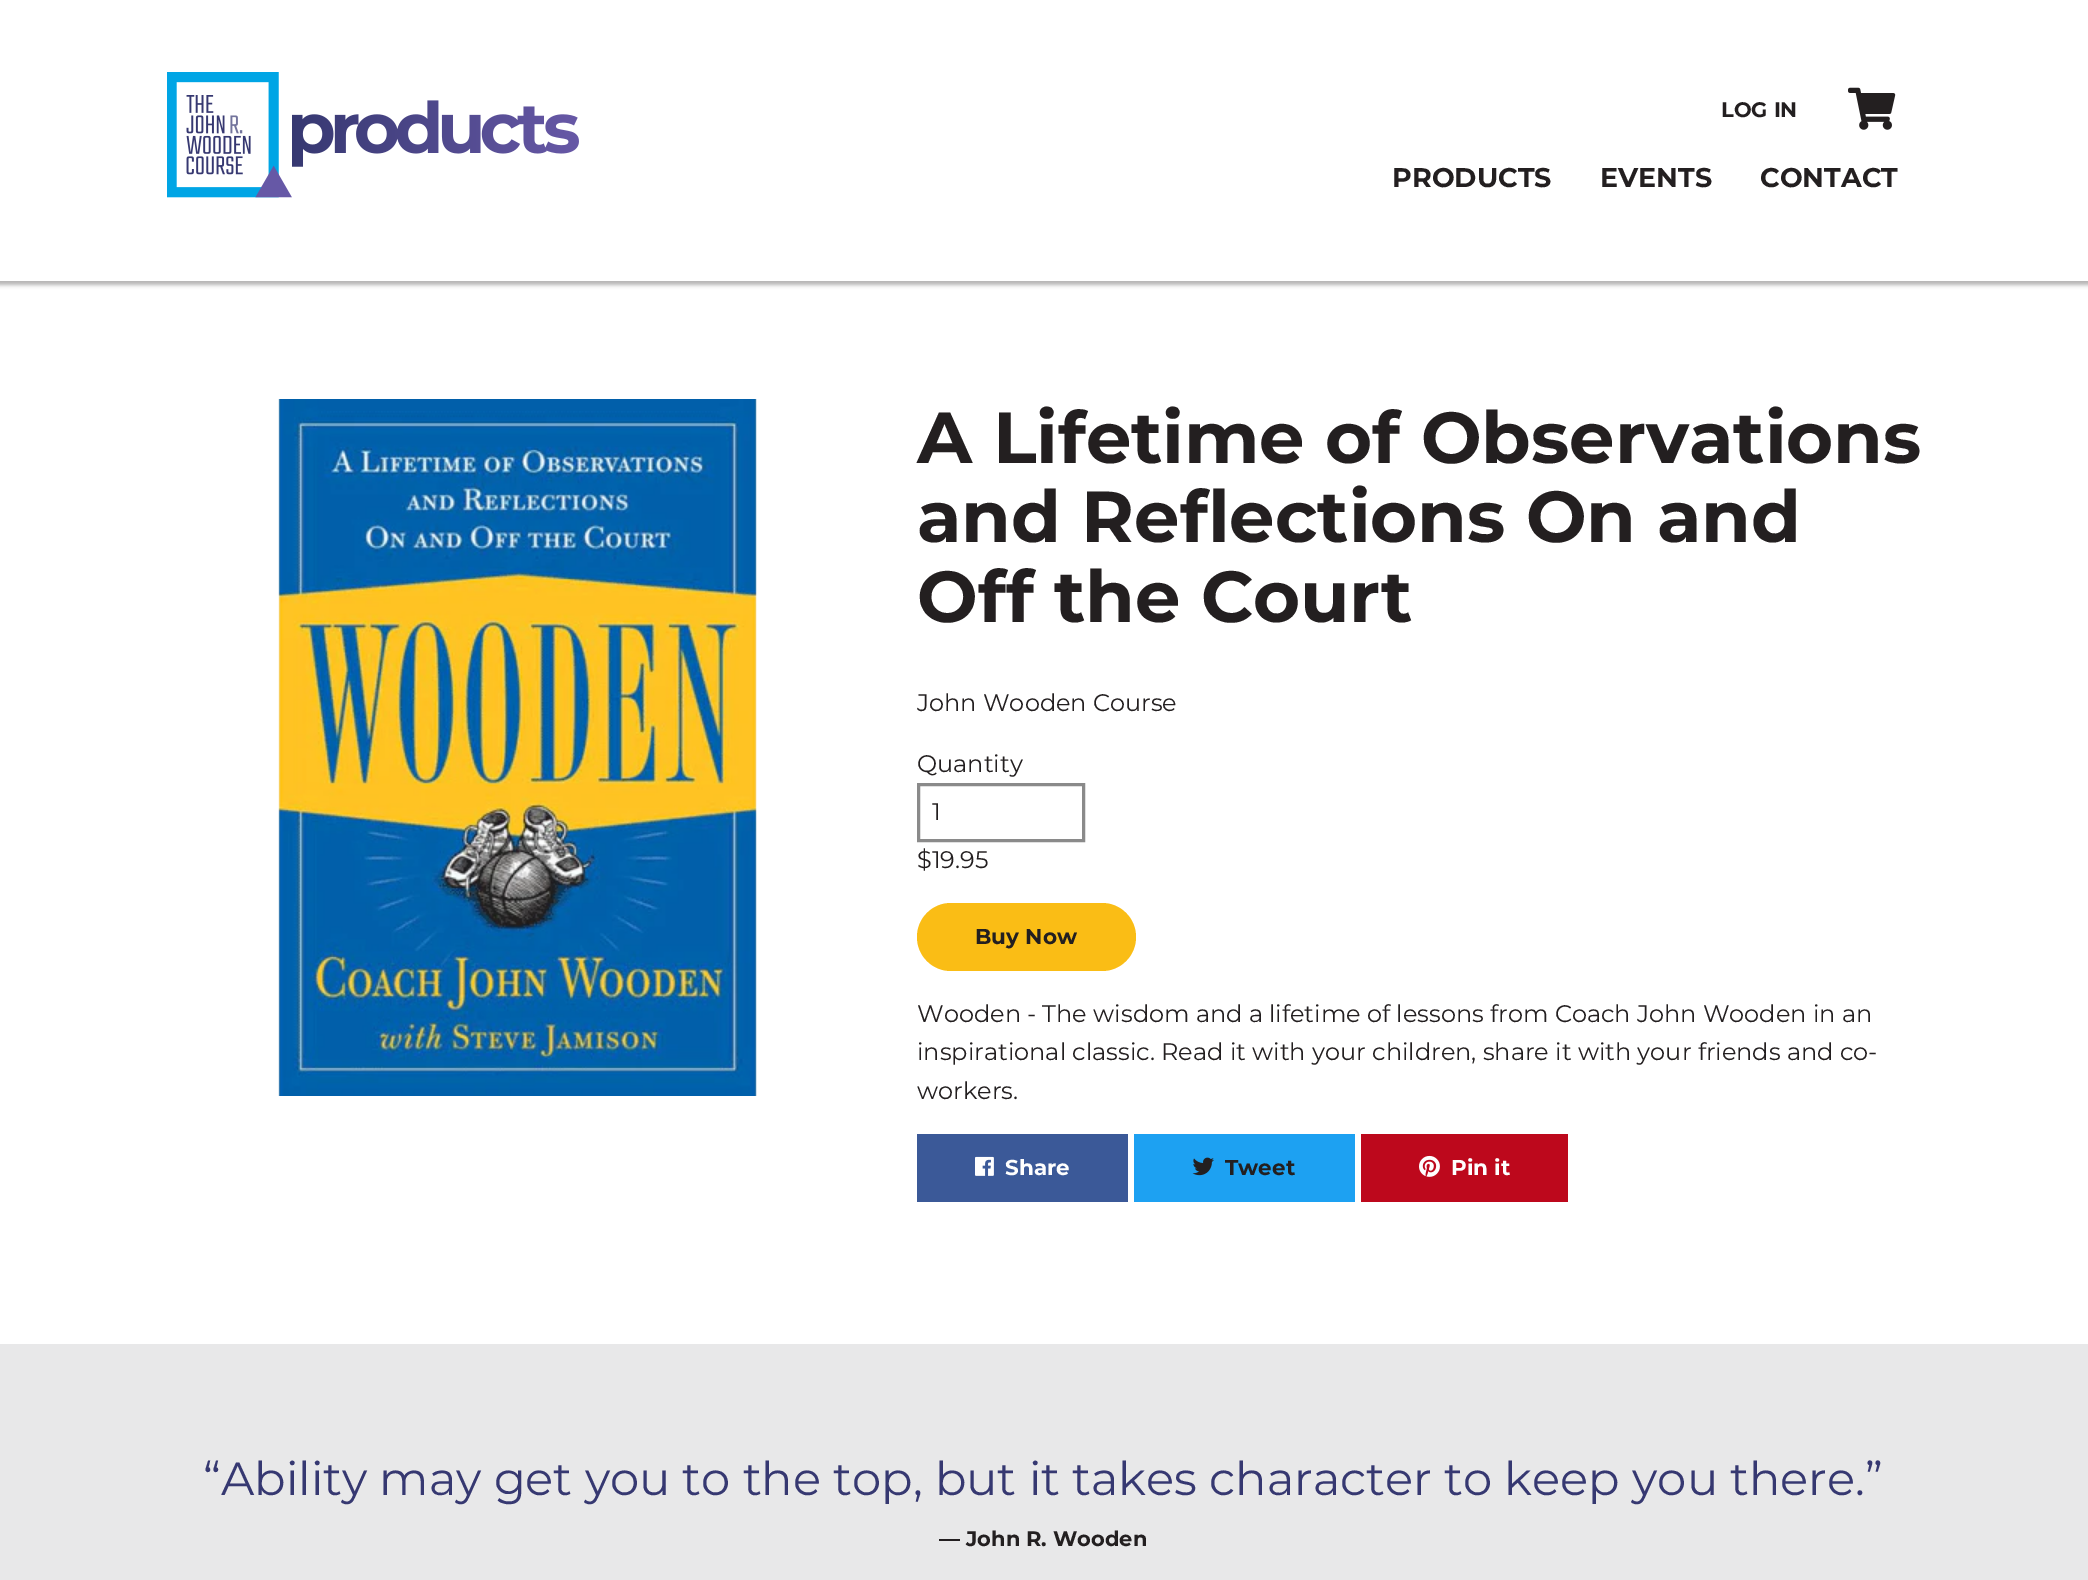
%!PS-Adobe-3.0
%%BoundingBox: 0 0 2088 1580
%%LanguageLevel: 3
%%Pages: 1
%%EndComments
%%BeginProlog
/setink { 3 { 255 div 3 1 roll } repeat setrgbcolor } def
/usefont { [ exch dup neg 0 0 3 -1 roll 0 0 ] selectfont } def
/drawtext { setink usefont moveto show } def
/fillbox { setink rectfill } def
/setalpha { dup .setfillconstantalpha .setstrokeconstantalpha } def
/rrect { 5 dict begin { /r /h /w /y /x } { exch def } forall
  x r add y moveto x w add y 2 copy h add r arct x w add y h add x 1 index r arct
  x y h add x y r arct x y 2 copy exch w add exch r arct closepath end } def
/softshadow { 12 dict begin { /a /b /q /h /w /y /x } { exch def } forall gsave /was 0 def
  9 -2 -9 { dup b mul 4 div /e exch def 1 sub .425 mul 2.718 exch exp 1 add a .99 .min exch div /now exch def
    1 1 now sub 1 was sub div sub setalpha /was now def
    w h .min e 2 mul add 0 gt { x e sub y e sub w e 2 mul add h e 2 mul add
      q e add b .6 mul add w h .min 2 div e add .min 0 .max rrect fill } if } for grestore end } def
/drawimage { 5 dict begin { /h /w /y /x /name } { exch def } forall
  gsave x y translate w h scale
  w h 8 [w 0 0 h 0 0] name (r) file false 3 colorimage grestore end } def
%%EndProlog
%%BeginSetup
<< /PageSize [2088 1580] /PageUsesTransparency true >> setpagedevice
%%EndSetup
%%Page: 1 1
0 .pushpdf14devicefilter
0 1580 translate 1 -1 scale
4 setmiterlimit
0 0 2088 1580 255 255 255 fillbox
gsave
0 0 moveto 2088 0 lineto 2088 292 lineto 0 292 lineto closepath 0 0 moveto 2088 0 lineto 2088 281 lineto 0 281 lineto closepath eoclip newpath
35 31 32 setink
-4 -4 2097 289 0 2 0.33 softshadow
grestore
(assets/img1.rgb) 167 72 412 126 drawimage
(LOG IN) 1721 117 /Montserrat-Bold 21 35 31 32 drawtext
(assets/img2.rgb) 1848 87 48 43 drawimage
(PRODUCTS) 1392 187 /Montserrat-Bold 27 35 31 32 drawtext
(EVENTS) 1600 187 /Montserrat-Bold 27 35 31 32 drawtext
(CONTACT) 1760 187 /Montserrat-Bold 27 35 31 32 drawtext
(assets/img3.rgb) 278 399 479 697 drawimage
(A Lifetime of Observations) 917 463 /Montserrat-Bold 72 35 31 32 drawtext
(and Reflections On and) 917 542 /Montserrat-Bold 72 35 31 32 drawtext
(Off the Court) 917 622 /Montserrat-Bold 72 35 31 32 drawtext
(John Wooden Course) 917 711 /Montserrat-Regular 24 35 31 32 drawtext
(Quantity) 917 772 /Montserrat-Regular 24 35 31 32 drawtext
138 138 138 setink
3 setlinewidth
918.5 784.5 165 56 rectstroke
(1) 932 820 /Montserrat-Regular 24 35 31 32 drawtext
($19.95) 917 868 /Montserrat-Regular 24 35 31 32 drawtext
250 189 21 setink
917 903 219 68 34 rrect fill
(Buy Now) 975 944 /Montserrat-Bold 21.5 35 31 32 drawtext
(Wooden - The wisdom and a lifetime of lessons from Coach John Wooden in an) 917 1022 /Montserrat-Regular 24 35 31 32 drawtext
(inspirational classic. Read it with your children, share it with your friends and co-) 917 1060 /Montserrat-Regular 24 35 31 32 drawtext
(workers.) 917 1099 /Montserrat-Regular 24 35 31 32 drawtext
917 1134 211 68 59 89 152 fillbox
(assets/img4.rgb) 975 1156 19 20 drawimage
(Share) 1005 1175 /Montserrat-Bold 21.5 254 254 254 drawtext
1134 1134 221 68 29 161 242 fillbox
(assets/img5.rgb) 1192 1157 22 19 drawimage
(Tweet) 1225 1175 /Montserrat-Bold 21.5 35 31 32 drawtext
1361 1134 207 68 189 8 28 fillbox
(assets/img6.rgb) 1419 1155 21 22 drawimage
(Pin it) 1451 1175 /Montserrat-Bold 21.5 254 254 254 drawtext
0 1344 2088 236 232 232 233 fillbox
(“Ability may get you to the top, but it takes character to keep you there.”) 203 1495 /Montserrat-Regular 46.5 54 56 113 drawtext
(— John R. Wooden) 939 1546 /Montserrat-Bold 21 35 31 32 drawtext
.poppdf14devicefilter showpage
%%EOF
